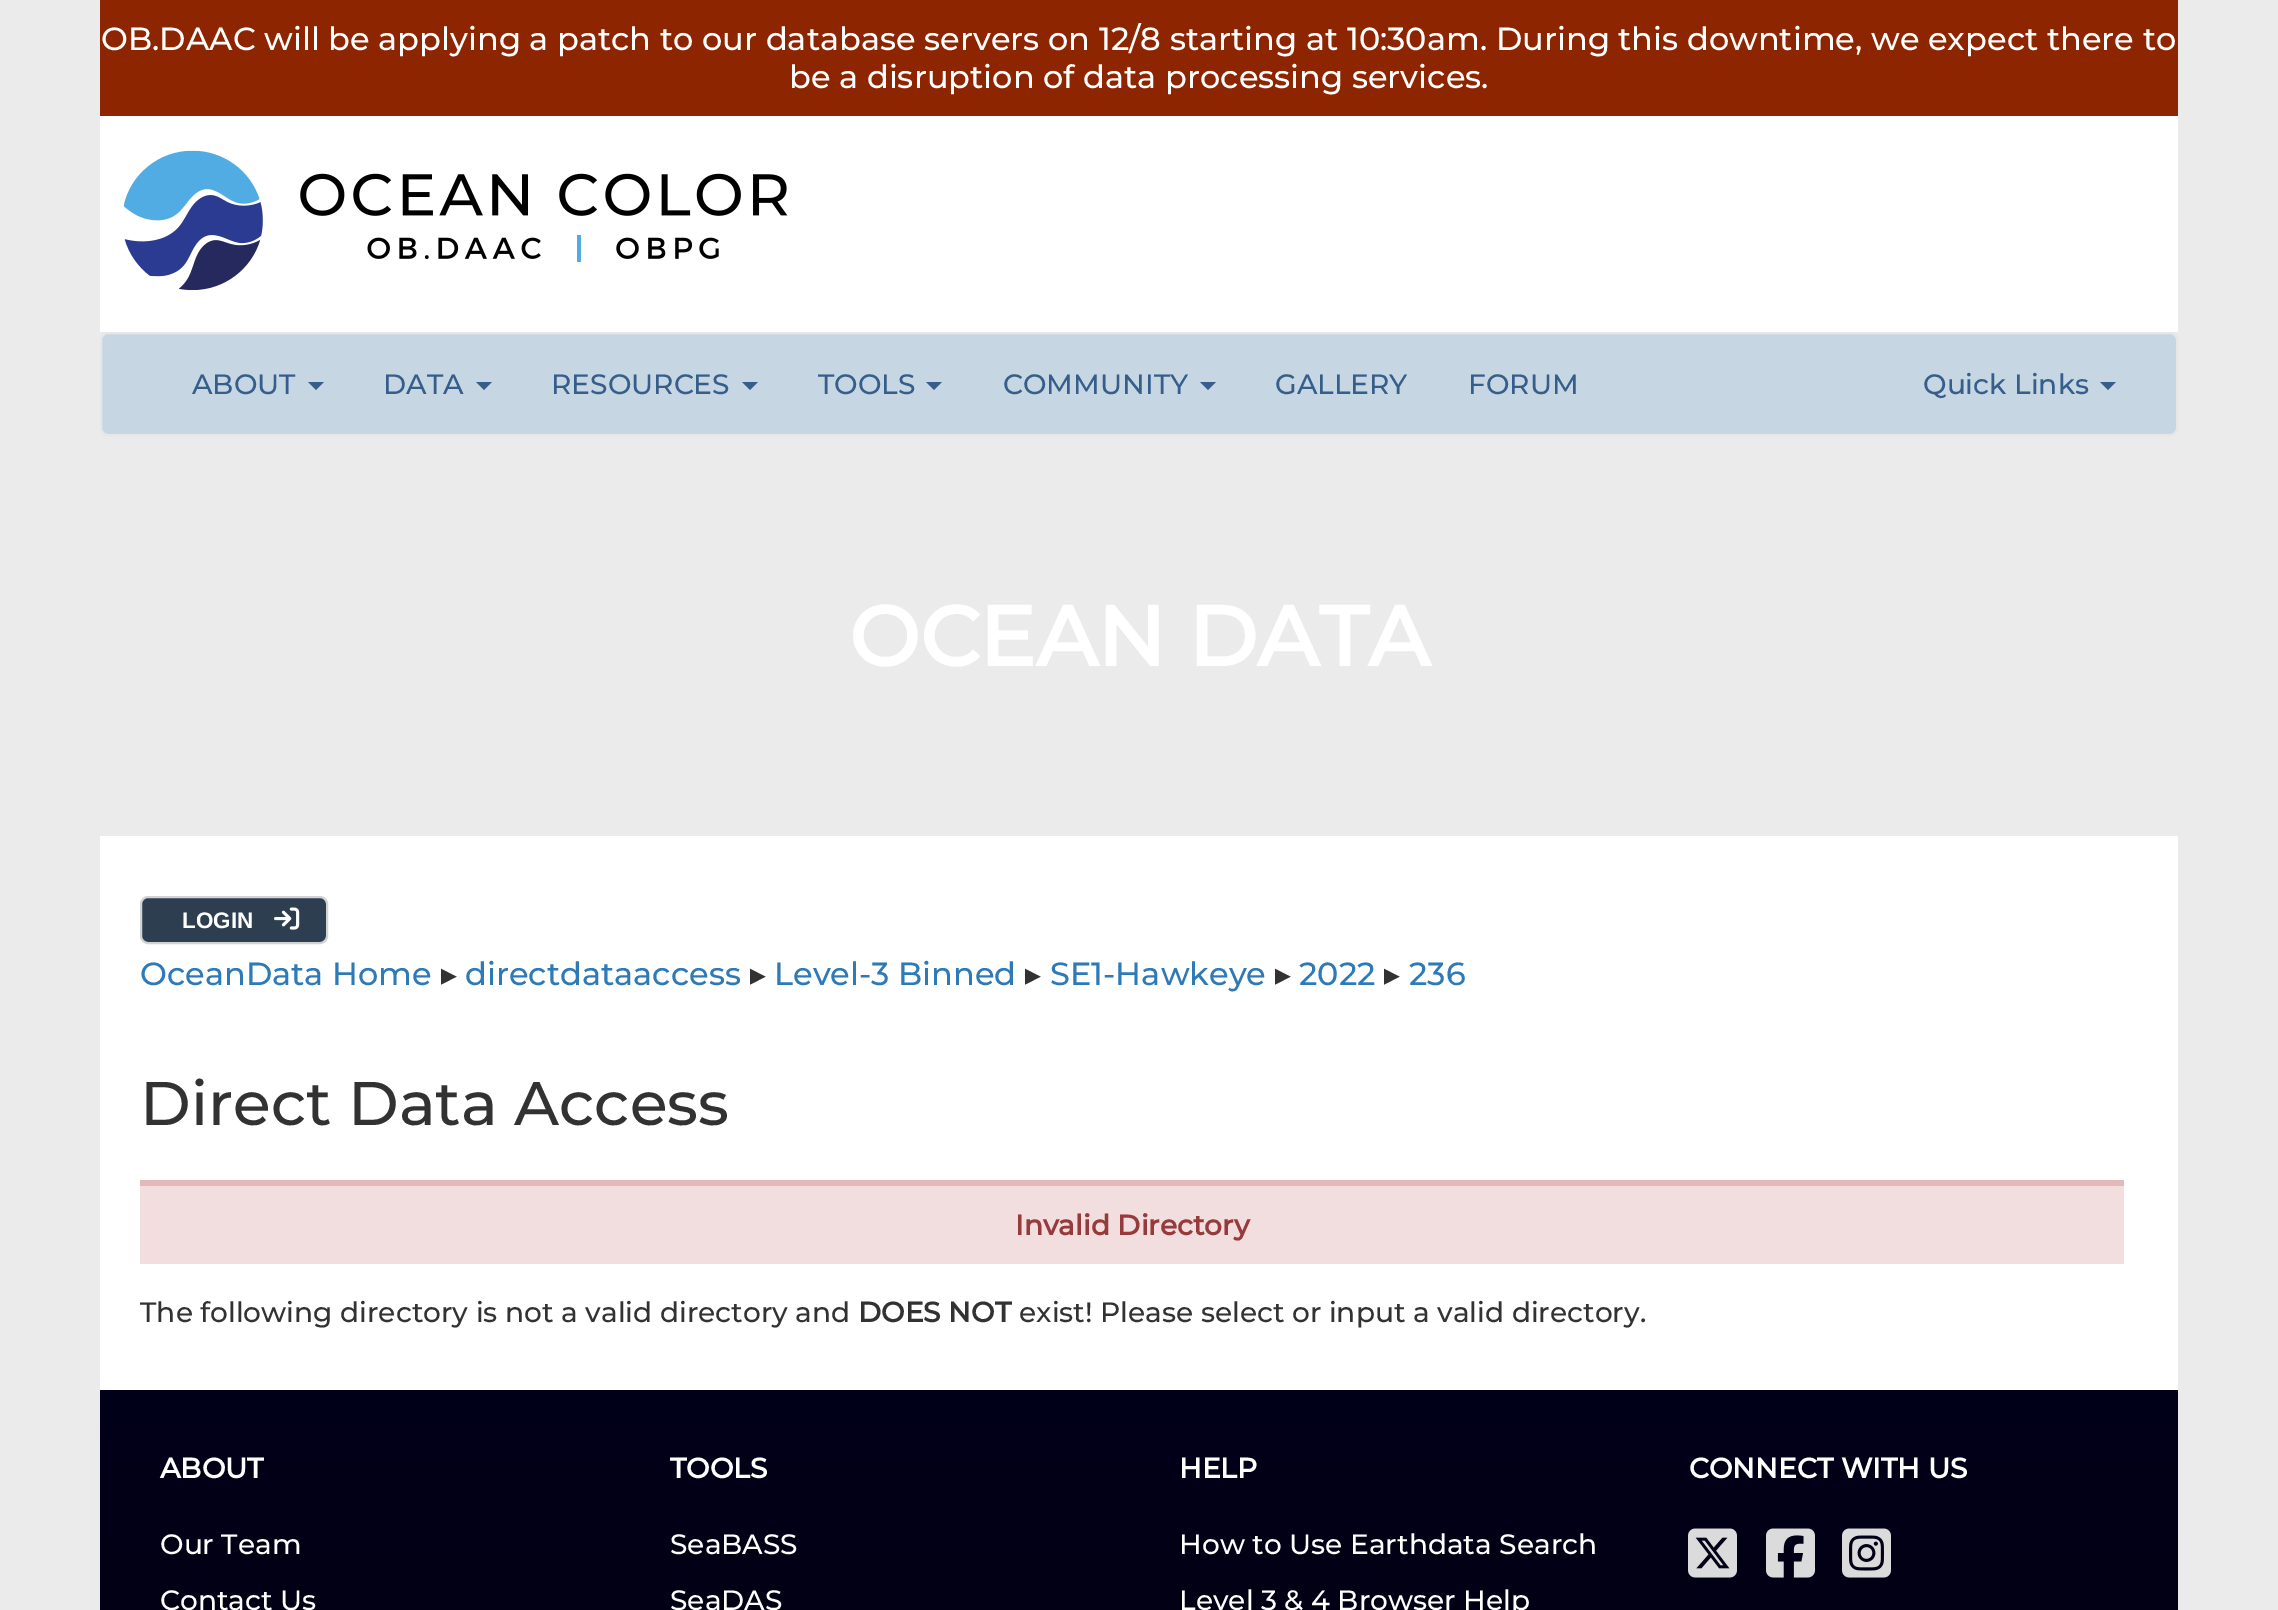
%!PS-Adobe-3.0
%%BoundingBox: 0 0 2278 1610
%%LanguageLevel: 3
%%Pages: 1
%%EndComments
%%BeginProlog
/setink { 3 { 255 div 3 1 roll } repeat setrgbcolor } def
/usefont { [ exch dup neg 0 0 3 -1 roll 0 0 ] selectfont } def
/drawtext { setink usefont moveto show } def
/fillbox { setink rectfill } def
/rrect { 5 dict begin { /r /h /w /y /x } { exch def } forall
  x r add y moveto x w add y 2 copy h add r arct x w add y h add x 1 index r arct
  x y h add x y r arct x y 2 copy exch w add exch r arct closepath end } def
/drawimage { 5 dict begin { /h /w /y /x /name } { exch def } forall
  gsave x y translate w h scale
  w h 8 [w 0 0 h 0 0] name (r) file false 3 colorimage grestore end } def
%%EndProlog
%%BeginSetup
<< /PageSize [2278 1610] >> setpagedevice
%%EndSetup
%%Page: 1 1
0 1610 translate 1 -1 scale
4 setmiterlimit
0 0 2278 1610 235 235 235 fillbox
100 0 2078 116 141 37 0 fillbox
(OB.DAAC will be applying a patch to our database servers on 12/8 starting at 10:30am. During this downtime, we expect there to) 101 50 /Montserrat-Thin 32 255 255 255 drawtext
(be a disruption of data processing services.) 789 88 /Montserrat-Thin 32 255 255 255 drawtext
100 116 2078 216 255 255 255 fillbox
(assets/img1.rgb) 123 150 665 141 drawimage
199 214 227 setink
101 333 2076 102 7 rrect gsave fill grestore
231 231 231 setink
2 setlinewidth
stroke
(ABOUT) 192 394 /Montserrat-Thin 28 53 94 138 drawtext
308 382 moveto 324 382 lineto 316 390 lineto closepath fill
(DATA) 383 394 /Montserrat-Thin 28 53 94 138 drawtext
476 382 moveto 492 382 lineto 484 390 lineto closepath fill
(RESOURCES) 551 394 /Montserrat-Thin 28 53 94 138 drawtext
742 382 moveto 758 382 lineto 750 390 lineto closepath fill
(TOOLS) 818 394 /Montserrat-Thin 28 53 94 138 drawtext
926 382 moveto 942 382 lineto 934 390 lineto closepath fill
(COMMUNITY) 1003 394 /Montserrat-Thin 28 53 94 138 drawtext
1200 382 moveto 1216 382 lineto 1208 390 lineto closepath fill
(GALLERY) 1275 394 /Montserrat-Thin 28 53 94 138 drawtext
(FORUM) 1468 394 /Montserrat-Thin 28 53 94 138 drawtext
(Quick Links) 1923 394 /Montserrat-Thin 28 53 94 138 drawtext
2100 382 moveto 2116 382 lineto 2108 390 lineto closepath fill
(OCEAN DATA) 849 666 /Montserrat-Bold 84 255 255 255 drawtext
100 836 2078 554 255 255 255 fillbox
44 62 80 setink
141 897 186 46 7 rrect gsave fill grestore
211 211 211 setink
stroke
(LOGIN) 182 928 /LiberationSans-Bold 22.5 255 255 255 drawtext
(assets/img2.rgb) 274 907 26 23 drawimage
(OceanData Home) 140 985 /Montserrat-Thin 32 45 122 183 drawtext
(▸) 441 985 /DejaVuSans-Regular 32 50 50 50 drawtext
(directdataaccess) 465 985 /Montserrat-Thin 32 45 122 183 drawtext
(▸) 750 985 /DejaVuSans-Regular 32 50 50 50 drawtext
(Level-3 Binned) 774 985 /Montserrat-Thin 32 45 122 183 drawtext
(▸) 1025 985 /DejaVuSans-Regular 32 50 50 50 drawtext
(SE1-Hawkeye) 1050 985 /Montserrat-Thin 32 45 122 183 drawtext
(▸) 1275 985 /DejaVuSans-Regular 32 50 50 50 drawtext
(2022) 1299 985 /Montserrat-Thin 32 45 122 183 drawtext
(▸) 1384 985 /DejaVuSans-Regular 32 50 50 50 drawtext
(236) 1409 985 /Montserrat-Thin 32 45 122 183 drawtext
(Direct Data Access) 140 1125 /Montserrat-Thin 61.5 50 50 50 drawtext
140 1186 1984 78 242 222 222 fillbox
140 1180 1984 6 228 185 185 fillbox
(Invalid Directory) 1015 1235 /Montserrat-Bold 28 150 59 59 drawtext
(The following directory is not a valid directory and) 140 1322 /Montserrat-Thin 28 50 50 50 drawtext
(DOES NOT) 858 1322 /Montserrat-Bold 28 50 50 50 drawtext
(exist! Please select or input a valid directory.) 1019 1322 /Montserrat-Thin 28 50 50 50 drawtext
gsave 100 1390 moveto 2178 1390 lineto 2178 1610 lineto 100 1610 lineto closepath clip newpath
<< /ShadingType 2 /ColorSpace /DeviceRGB /Coords [1139 1390 1139 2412] /Extend [true true] /Function << /FunctionType 2 /Domain [0 1] /C0 [0.004 0 0.102] /C1 [0 0 0] /N 1 >> >> shfill grestore
(ABOUT) 160 1478 /Montserrat-Bold 28 255 255 255 drawtext
(Our Team) 160 1554 /Montserrat-Thin 28 255 255 255 drawtext
(Contact Us) 160 1610 /Montserrat-Thin 28 255 255 255 drawtext
(TOOLS) 670 1478 /Montserrat-Bold 28 255 255 255 drawtext
(SeaBASS) 670 1554 /Montserrat-Thin 28 255 255 255 drawtext
(SeaDAS) 670 1610 /Montserrat-Thin 28 255 255 255 drawtext
(HELP) 1179 1478 /Montserrat-Bold 28 255 255 255 drawtext
(How to Use Earthdata Search) 1179 1554 /Montserrat-Thin 28 255 255 255 drawtext
(Level 3 & 4 Browser Help) 1179 1610 /Montserrat-Thin 28 255 255 255 drawtext
(CONNECT WITH US) 1689 1478 /Montserrat-Bold 28 255 255 255 drawtext
(assets/img3.rgb) 1688 1528 49 50 drawimage
(assets/img4.rgb) 1766 1528 49 50 drawimage
(assets/img5.rgb) 1842 1528 49 50 drawimage
showpage
%%EOF
